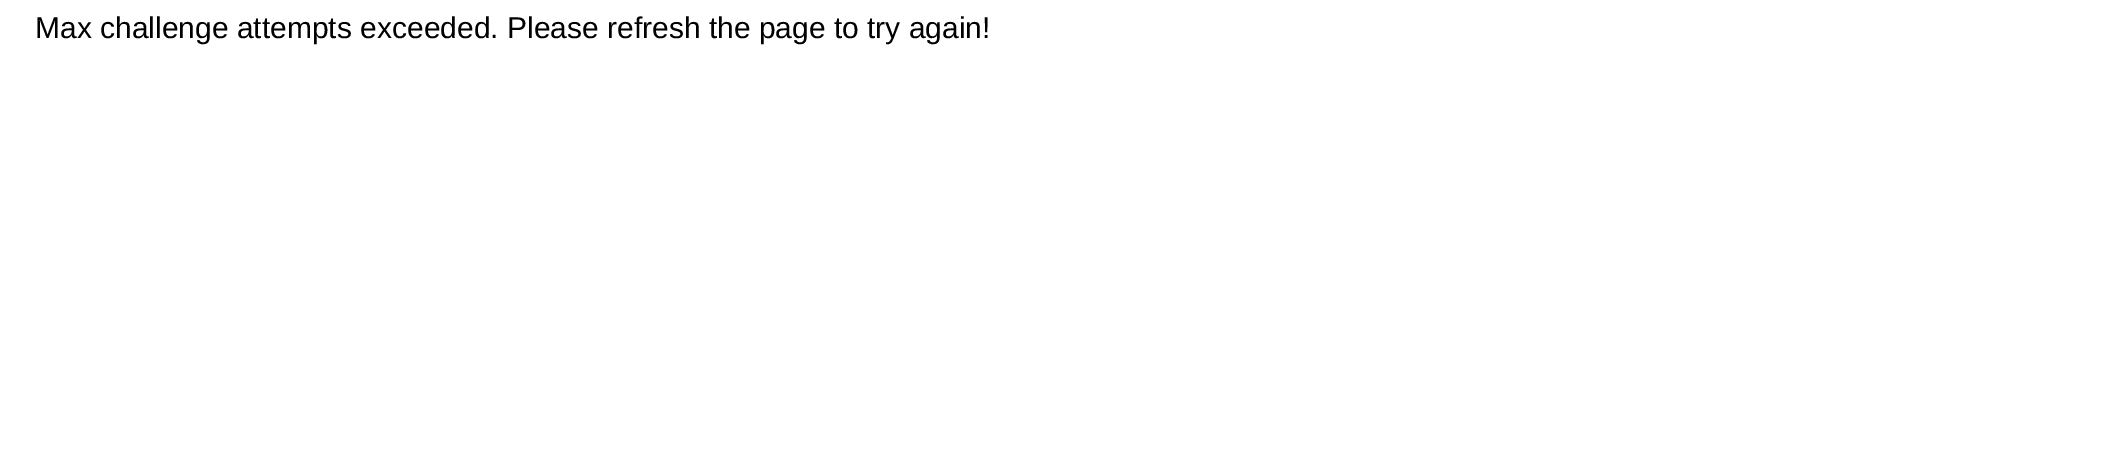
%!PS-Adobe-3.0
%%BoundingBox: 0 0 2127 461
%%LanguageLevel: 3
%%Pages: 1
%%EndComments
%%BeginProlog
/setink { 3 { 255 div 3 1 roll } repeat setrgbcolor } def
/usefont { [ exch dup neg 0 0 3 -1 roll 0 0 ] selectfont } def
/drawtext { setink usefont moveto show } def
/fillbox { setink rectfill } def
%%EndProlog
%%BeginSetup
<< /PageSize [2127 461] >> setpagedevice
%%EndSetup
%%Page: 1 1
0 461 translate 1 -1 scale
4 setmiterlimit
0 0 2127 461 255 255 255 fillbox
(Max challenge attempts exceeded. Please refresh the page to try again!) 35 38 /LiberationSans-Regular 30 0 0 0 drawtext
showpage
%%EOF
